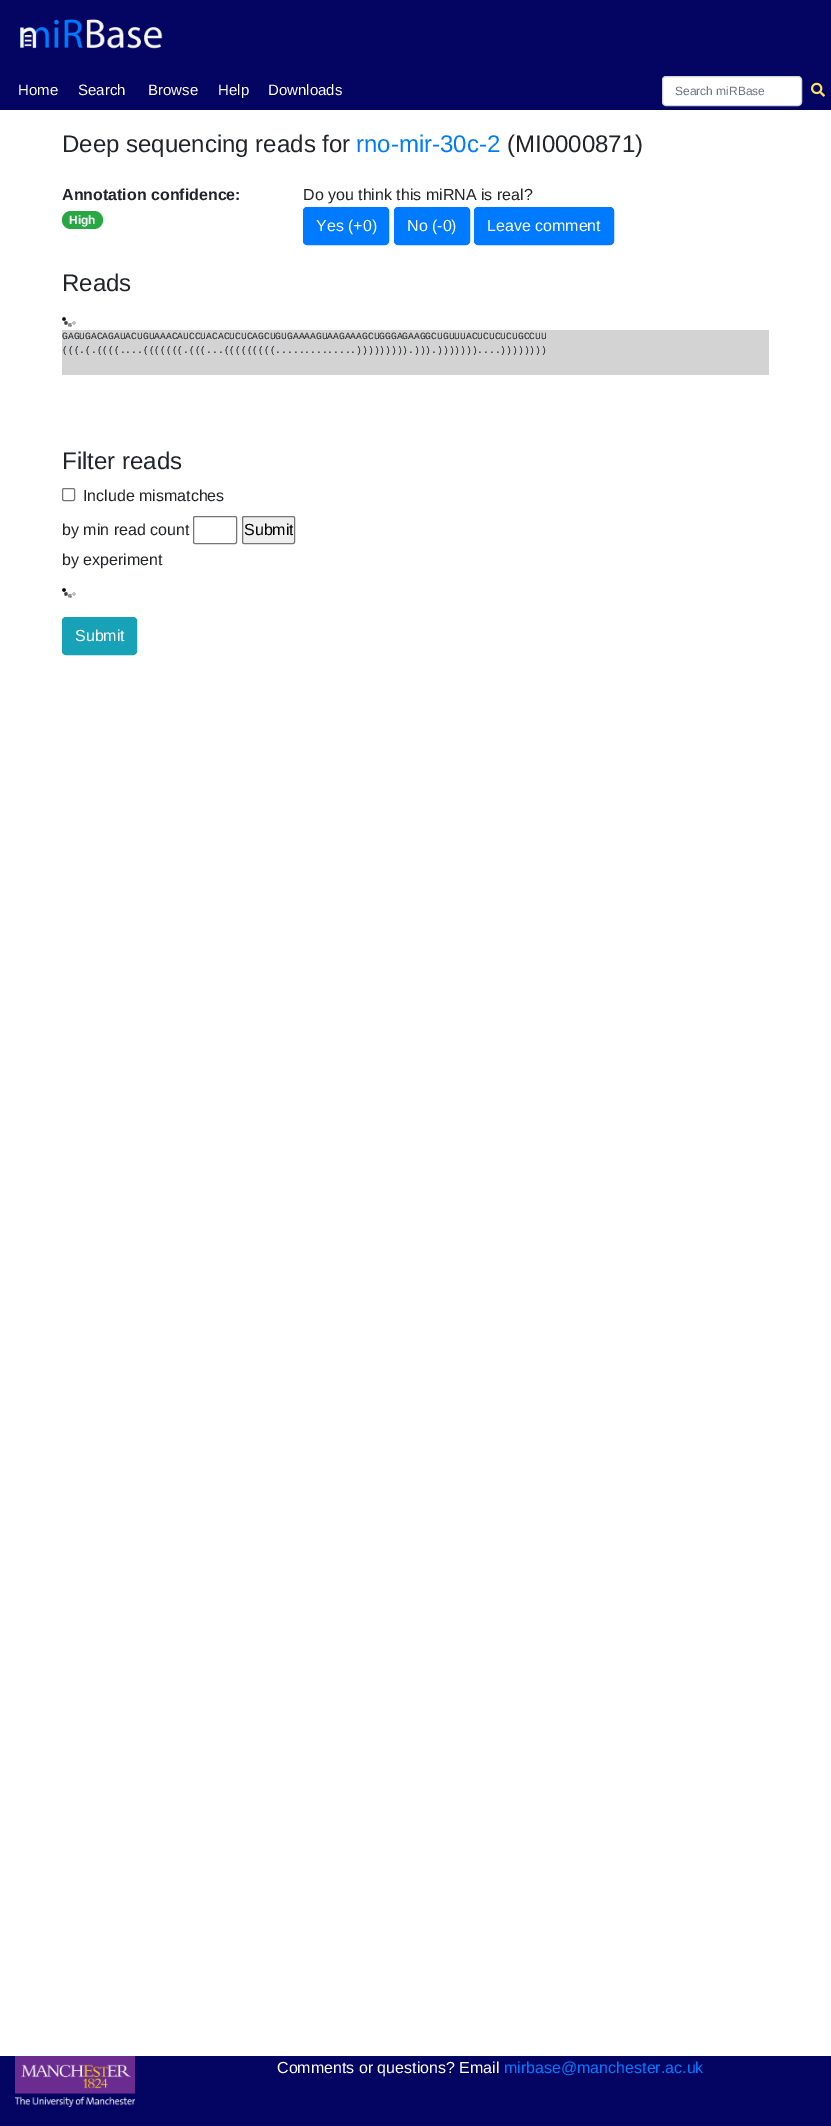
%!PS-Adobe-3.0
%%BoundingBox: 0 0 831 2126
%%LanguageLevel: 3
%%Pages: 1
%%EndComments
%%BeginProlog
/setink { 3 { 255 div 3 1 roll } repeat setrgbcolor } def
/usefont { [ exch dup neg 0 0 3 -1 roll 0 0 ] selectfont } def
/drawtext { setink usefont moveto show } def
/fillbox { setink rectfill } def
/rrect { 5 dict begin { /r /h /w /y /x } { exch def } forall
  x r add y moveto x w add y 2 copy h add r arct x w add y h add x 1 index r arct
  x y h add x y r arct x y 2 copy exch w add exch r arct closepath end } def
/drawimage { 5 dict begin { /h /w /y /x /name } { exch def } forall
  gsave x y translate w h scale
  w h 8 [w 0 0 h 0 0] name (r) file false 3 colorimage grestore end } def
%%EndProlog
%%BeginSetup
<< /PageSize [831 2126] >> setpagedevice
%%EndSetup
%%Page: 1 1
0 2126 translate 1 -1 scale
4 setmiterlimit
0 0 831 2126 255 255 255 fillbox
0 0 831 110 4 5 98 fillbox
(assets/img1.rgb) 19 19 144 30 drawimage
(Home) 18 95 /LiberationSans-Regular 15 255 255 255 drawtext
(Search) 78 95 /LiberationSans-Regular 15 255 255 255 drawtext
(Browse) 148 95 /LiberationSans-Regular 15 255 255 255 drawtext
(Help) 218 95 /LiberationSans-Regular 15 255 255 255 drawtext
(Downloads) 268 95 /LiberationSans-Regular 15 255 255 255 drawtext
662.5 76.5 139 29 3.5 rrect gsave fill grestore
206 212 218 setink
stroke
(Search miRBase) 675 95 /LiberationSans-Regular 12 108 117 125 drawtext
(assets/img2.rgb) 811 82 14 15 drawimage
(Deep sequencing reads for) 62 152 /LiberationSans-Regular 24 33 37 41 drawtext
(rno-mir-30c-2) 356 152 /LiberationSans-Regular 24 0 123 255 drawtext
(\(MI0000871\)) 507 152 /LiberationSans-Regular 24 33 37 41 drawtext
(Annotation confidence:) 62 200 /LiberationSans-Bold 16 33 37 41 drawtext
40 167 69 setink
62 211 41 18 9 rrect fill
(High) 69 224 /LiberationSans-Bold 12 255 255 255 drawtext
(Do you think this miRNA is real?) 303 200 /LiberationSans-Regular 16 33 37 41 drawtext
0 123 255 setink
303.5 207.5 85 37 3.5 rrect gsave fill grestore
stroke
(Yes \(+0\)) 316 231 /LiberationSans-Regular 16 255 255 255 drawtext
0 123 255 setink
394.5 207.5 75 37 3.5 rrect gsave fill grestore
stroke
(No \(-0\)) 407 231 /LiberationSans-Regular 16 255 255 255 drawtext
0 123 255 setink
474.5 207.5 139 37 3.5 rrect gsave fill grestore
stroke
(Leave comment) 487 231 /LiberationSans-Regular 16 255 255 255 drawtext
(Reads) 62 291 /LiberationSans-Regular 24 33 37 41 drawtext
(assets/img3.rgb) 62 317 14 10 drawimage
62 330 707 45 211 211 211 fillbox
(GAGUGACAGAUACUGUAAACAUCCUACACUCUCAGCUGUGAAAAGUAAGAAAGCUGGGAGAAGGCUGUUUACUCUCUCUGCCUU) 62 339 /LiberationMono-Regular 9.62 33 37 41 drawtext
(\(\(\(.\(.\(\(\(\(....\(\(\(\(\(\(\(.\(\(\(...\(\(\(\(\(\(\(\(\(..............\)\)\)\)\)\)\)\)\).\)\)\).\)\)\)\)\)\)\)....\)\)\)\)\)\)\)\)) 62 353 /LiberationMono-Regular 9.62 33 37 41 drawtext
(Filter reads) 62 469 /LiberationSans-Regular 24 33 37 41 drawtext
118 118 118 setink
62.5 488.5 12 12 1.5 rrect stroke
(Include mismatches) 83 501 /LiberationSans-Regular 16 33 37 41 drawtext
(by min read count) 62 535 /LiberationSans-Regular 16 33 37 41 drawtext
118 118 118 setink
193.5 516.5 43 27 1.5 rrect stroke
239 239 239 setink
242.5 516.5 52 27 1.5 rrect gsave fill grestore
118 118 118 setink
stroke
gsave
244 518 49 24 rectclip
(Submit) 244 535 /LiberationSans-Regular 16 0 0 0 drawtext
grestore
(by experiment) 62 565 /LiberationSans-Regular 16 33 37 41 drawtext
(assets/img3.rgb) 62 588 14 10 drawimage
23 162 184 setink
62.5 617.5 74 37 3.5 rrect gsave fill grestore
stroke
(Submit) 75 641 /LiberationSans-Regular 16 255 255 255 drawtext
0 2056 831 70 4 5 98 fillbox
(assets/img4.rgb) 15 2056 120 51 drawimage
(Comments or questions? Email) 277 2073 /LiberationSans-Regular 16 255 255 255 drawtext
(mirbase@manchester.ac.uk) 504 2073 /LiberationSans-Regular 16 0 123 255 drawtext
showpage
%%EOF
